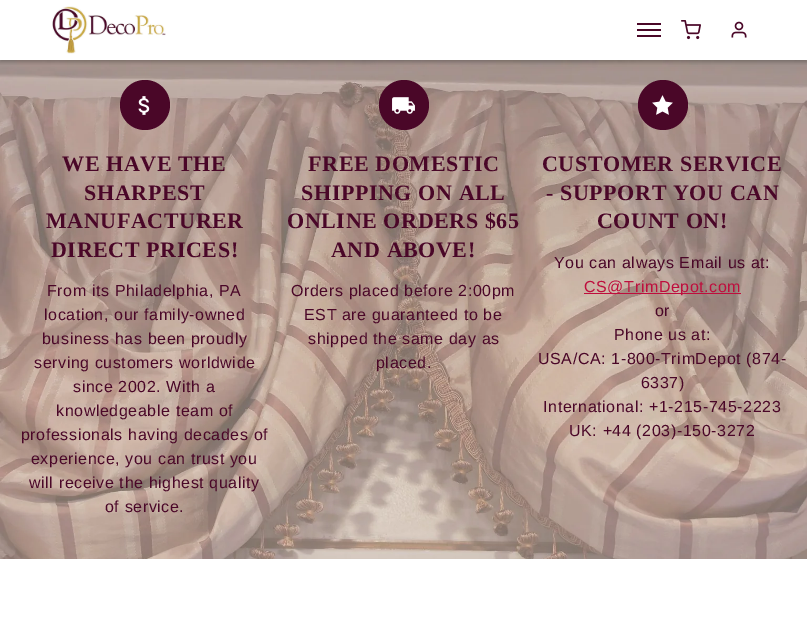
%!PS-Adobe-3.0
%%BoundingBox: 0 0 807 627
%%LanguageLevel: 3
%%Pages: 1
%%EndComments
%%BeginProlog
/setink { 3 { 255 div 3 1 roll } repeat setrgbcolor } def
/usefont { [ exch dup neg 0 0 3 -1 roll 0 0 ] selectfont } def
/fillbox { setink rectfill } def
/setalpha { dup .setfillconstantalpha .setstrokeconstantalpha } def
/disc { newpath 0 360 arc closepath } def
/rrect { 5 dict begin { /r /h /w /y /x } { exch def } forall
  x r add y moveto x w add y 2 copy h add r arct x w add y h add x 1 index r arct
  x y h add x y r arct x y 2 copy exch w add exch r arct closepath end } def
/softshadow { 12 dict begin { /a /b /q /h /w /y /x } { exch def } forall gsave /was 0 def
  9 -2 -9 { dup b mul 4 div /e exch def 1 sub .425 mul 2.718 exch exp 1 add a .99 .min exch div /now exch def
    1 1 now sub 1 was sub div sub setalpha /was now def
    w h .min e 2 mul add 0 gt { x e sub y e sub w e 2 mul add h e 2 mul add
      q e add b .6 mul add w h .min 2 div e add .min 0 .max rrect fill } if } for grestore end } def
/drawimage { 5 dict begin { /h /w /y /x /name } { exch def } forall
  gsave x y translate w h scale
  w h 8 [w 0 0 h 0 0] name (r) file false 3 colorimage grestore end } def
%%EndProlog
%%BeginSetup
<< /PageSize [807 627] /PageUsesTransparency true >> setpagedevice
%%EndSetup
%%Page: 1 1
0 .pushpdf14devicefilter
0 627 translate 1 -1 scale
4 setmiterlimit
0 0 807 627 255 255 255 fillbox
(assets/img4.rgb) 0 60 807 499 drawimage
gsave
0 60 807 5 rectclip
0 0 0 setink
0 2 807 60 0 2 0.26 softshadow
grestore
(assets/img1.rgb) 52 6 114 48 drawimage
637 23 24 2 74 7 40 fillbox
637 29 24 2 74 7 40 fillbox
637 35 24 2 74 7 40 fillbox
(assets/img2.rgb) 681 20 20 20 drawimage
(assets/img3.rgb) 731 21 16 17 drawimage
145 105 25 disc fill
(assets/img5.rgb) 138 96 12 19 drawimage
/LiberationSerif-Bold 22 usefont
62 171 moveto 0.6 0 (WE HAVE THE) ashow
84 200 moveto 0.6 0 (SHARPEST) ashow
46 228 moveto 0.6 0 (MANUFACTURER) ashow
51 257 moveto 0.6 0 (DIRECT PRICES!) ashow
/LiberationSans-Regular 16 usefont
47 296 moveto 0.6 0 (From its Philadelphia, PA) ashow
44 320 moveto 0.6 0 (location, our family-owned) ashow
42 344 moveto 0.6 0 (business has been proudly) ashow
34 368 moveto 0.6 0 (serving customers worldwide) ashow
73 392 moveto 0.6 0 (since 2002. With a) ashow
56 416 moveto 0.6 0 (knowledgeable team of) ashow
21 440 moveto 0.6 0 (professionals having decades of) ashow
31 464 moveto 0.6 0 (experience, you can trust you) ashow
29 488 moveto 0.6 0 (will receive the highest quality) ashow
105 512 moveto 0.6 0 (of service.) ashow
404 105 25 disc fill
(assets/img6.rgb) 392 97 23 17 drawimage
/LiberationSerif-Bold 22 usefont
308 171 moveto 0.6 0 (FREE DOMESTIC) ashow
301 200 moveto 0.6 0 (SHIPPING ON ALL) ashow
287 228 moveto 0.6 0 (ONLINE ORDERS $65) ashow
331 257 moveto 0.6 0 (AND ABOVE!) ashow
/LiberationSans-Regular 16 usefont
291 296 moveto 0.6 0 (Orders placed before 2:00pm) ashow
304 320 moveto 0.6 0 (EST are guaranteed to be) ashow
308 344 moveto 0.6 0 (shipped the same day as) ashow
376 368 moveto 0.6 0 (placed.) ashow
663 105 25 disc fill
(assets/img7.rgb) 652 95 21 20 drawimage
/LiberationSerif-Bold 22 usefont
542 171 moveto 0.6 0 (CUSTOMER SERVICE) ashow
546 200 moveto 0.6 0 (- SUPPORT YOU CAN) ashow
597 228 moveto 0.6 0 (COUNT ON!) ashow
/LiberationSans-Regular 16 usefont
554 268 moveto 0.6 0 (You can always Email us at:) ashow
584 293 157 1 190 14 61 fillbox
584 292 moveto 0.6 0 (CS@TrimDepot.com) ashow
74 7 40 setink
655 316 moveto 0.6 0 (or) ashow
614 340 moveto 0.6 0 (Phone us at:) ashow
538 364 moveto 0.6 0 (USA/CA: 1-800-TrimDepot \(874-) ashow
641 388 moveto 0.6 0 (6337\)) ashow
543 412 moveto 0.6 0 (International: +1-215-745-2223) ashow
569 436 moveto 0.6 0 (UK: +44 \(203\)-150-3272) ashow
.poppdf14devicefilter showpage
%%EOF
